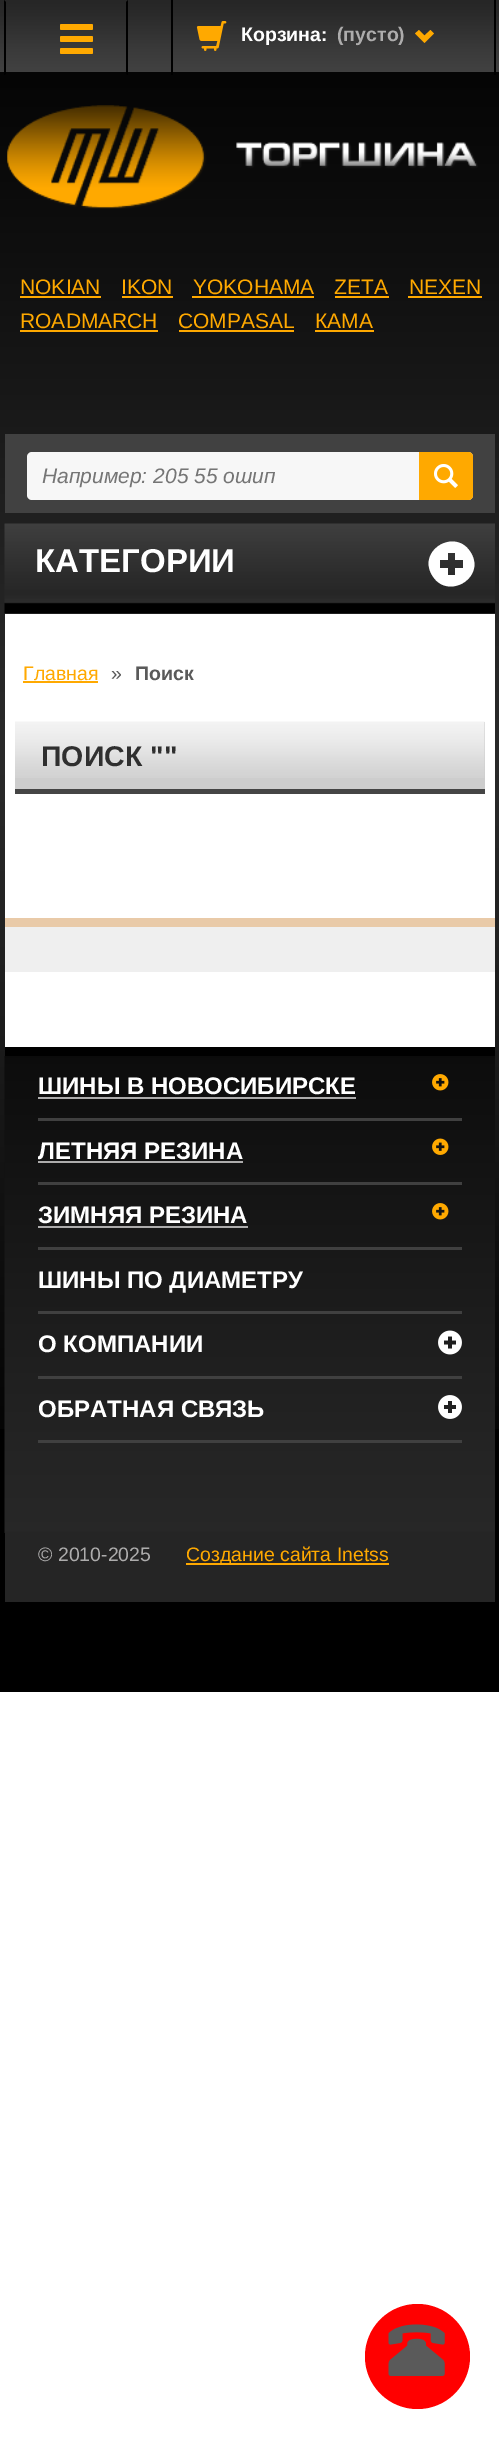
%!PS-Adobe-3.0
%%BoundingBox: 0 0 499 2439
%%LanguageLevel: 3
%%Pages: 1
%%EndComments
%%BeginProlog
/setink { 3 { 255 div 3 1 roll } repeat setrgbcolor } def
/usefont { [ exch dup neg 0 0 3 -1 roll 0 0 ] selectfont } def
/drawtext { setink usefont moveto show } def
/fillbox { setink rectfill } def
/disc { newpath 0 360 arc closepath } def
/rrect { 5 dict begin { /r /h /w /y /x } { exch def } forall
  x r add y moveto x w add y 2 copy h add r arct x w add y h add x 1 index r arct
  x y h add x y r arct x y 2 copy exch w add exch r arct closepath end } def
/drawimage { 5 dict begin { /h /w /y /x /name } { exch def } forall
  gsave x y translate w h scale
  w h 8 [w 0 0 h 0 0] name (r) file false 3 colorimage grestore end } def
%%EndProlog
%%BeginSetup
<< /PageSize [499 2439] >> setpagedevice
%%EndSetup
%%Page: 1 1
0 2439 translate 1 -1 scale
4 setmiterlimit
0 0 499 2439 255 255 255 fillbox
0 1429 499 263 0 0 0 fillbox
(assets/img1.rgb) 0 72 499 1357 drawimage
(assets/img2.rgb) 0 0 499 72 drawimage
128 0 moveto 128 75 lineto 126 74 lineto 126 2 lineto closepath fill
4 75 moveto 4 0 lineto 6 2 lineto 6 74 lineto closepath fill
255 169 0 setink
60 24 33 6 1.5 rrect fill
60 36 33 6 1.5 rrect fill
60 48 33 6 1.5 rrect fill
494 0 2 75 0 0 0 fillbox
171 0 2 75 0 0 0 fillbox
(assets/img3.rgb) 196 21 31 30 drawimage
(Корзина:) 241 41 /LiberationSans-Bold 19.5 255 255 255 drawtext
(\(пусто\)) 337 41 /LiberationSans-Bold 19.5 173 172 172 drawtext
255 169 0 setink
415 33.5 moveto 424.5 43 lineto 434 33.5 lineto 430.5 30 lineto 424.5 35.5 lineto 419 30 lineto closepath fill
(assets/img4.rgb) 7 105 471 104 drawimage
(NOKIAN) 20 294 /LiberationSans-Regular 21 255 169 0 drawtext
20 296 81 2 255 169 0 fillbox
(IKON) 121 294 /LiberationSans-Regular 21 255 169 0 drawtext
122 296 51 2 255 169 0 fillbox
(YOKOHAMA) 193 294 /LiberationSans-Regular 21 255 169 0 drawtext
192 296 122 2 255 169 0 fillbox
(ZETA) 334 294 /LiberationSans-Regular 21 255 169 0 drawtext
335 296 54 2 255 169 0 fillbox
(NEXEN) 409 294 /LiberationSans-Regular 21 255 169 0 drawtext
408 296 74 2 255 169 0 fillbox
(ROADMARCH) 20 328 /LiberationSans-Regular 21 255 169 0 drawtext
20 330 138 2 255 169 0 fillbox
(COMPASAL) 178 328 /LiberationSans-Regular 21 255 169 0 drawtext
179 330 115 2 255 169 0 fillbox
(КАМА) 315 328 /LiberationSans-Regular 21 255 169 0 drawtext
315 330 59 2 255 169 0 fillbox
5 434 490 79 65 65 65 fillbox
247 247 247 setink
27 452 446 48 5 rrect fill
(Например: 205 55 ошип) 42 483 /LiberationSans-Italic 21 117 117 117 drawtext
255 169 0 setink
419 452 moveto 468 452 lineto 471 452 473 454 473 457 curveto 473 495 lineto 473 498 471 500 468 500 curveto 419 500 lineto closepath fill
(assets/img5.rgb) 434 464 24 24 drawimage
5 613 490 1 63 63 63 fillbox
(assets/img6.rgb) 4 523 491 91 drawimage
(КАТЕГОРИИ) 35 572 /LiberationSans-Bold 33 255 255 255 drawtext
432 575 moveto 417 550 456 527 471 553 curveto 486 578 447 601 432 575 curveto closepath 440 568 moveto 448 568 lineto 448 575 lineto 455 575 lineto 455 568 lineto 463 568 lineto 463 560 lineto 455 560 lineto 455 553 lineto 448 553 lineto 448 560 lineto 440 560 lineto closepath fill
5 614 490 433 255 255 255 fillbox
(Главная) 23 680 /LiberationSans-Regular 19.5 255 169 0 drawtext
23 681 75 2 255 169 0 fillbox
(») 111 680 /LiberationSans-Regular 19.5 90 90 90 drawtext
(Поиск) 135 680 /LiberationSans-Bold 19.5 90 90 90 drawtext
15 722 470 67 205 205 205 fillbox
(assets/img7.rgb) 15 721 470 57 drawimage
15 789 470 5 69 69 69 fillbox
(ПОИСК "") 41 766 /LiberationSans-Bold 28.5 47 47 47 drawtext
255 0 0 setink
417.5 2356.5 52.5 disc fill
(assets/img8.rgb) 388 2324 57 52 drawimage
5 927 490 45 239 239 239 fillbox
5 918 490 9 233 202 168 fillbox
5 1533 490 69 37 37 37 fillbox
(assets/img9.rgb) 4 1056 491 477 drawimage
5 1047 490 9 0 0 0 fillbox
38 1118 424 3 64 64 64 fillbox
(ШИНЫ В НОВОСИБИРСКЕ) 38 1094 /LiberationSans-Bold 24 255 255 255 drawtext
38 1097 318 2 173 172 172 fillbox
(assets/img10.rgb) 432 1074 17 17 drawimage
38 1182 424 3 64 64 64 fillbox
(ЛЕТНЯЯ РЕЗИНА) 38 1159 /LiberationSans-Bold 24 255 255 255 drawtext
38 1161 205 2 173 172 172 fillbox
(assets/img11.rgb) 432 1138 17 17 drawimage
38 1247 424 3 64 64 64 fillbox
(ЗИМНЯЯ РЕЗИНА) 38 1223 /LiberationSans-Bold 24 255 255 255 drawtext
38 1226 210 2 173 172 172 fillbox
(assets/img12.rgb) 432 1203 17 17 drawimage
38 1311 424 3 64 64 64 fillbox
(ШИНЫ ПО ДИАМЕТРУ) 38 1288 /LiberationSans-Bold 24 255 255 255 drawtext
38 1376 424 3 64 64 64 fillbox
(О КОМПАНИИ) 38 1352 /LiberationSans-Bold 24 255 255 255 drawtext
(assets/img13.rgb) 438 1330 24 25 drawimage
38 1440 424 3 64 64 64 fillbox
(ОБРАТНАЯ СВЯЗЬ) 38 1417 /LiberationSans-Bold 24 255 255 255 drawtext
(assets/img14.rgb) 438 1395 24 24 drawimage
(© 2010-2025) 38 1561 /LiberationSans-Regular 19.5 173 172 172 drawtext
186 1563 203 2 255 169 0 fillbox
(Создание сайта Inetss) 186 1561 /LiberationSans-Regular 19.5 255 169 0 drawtext
showpage
%%EOF
